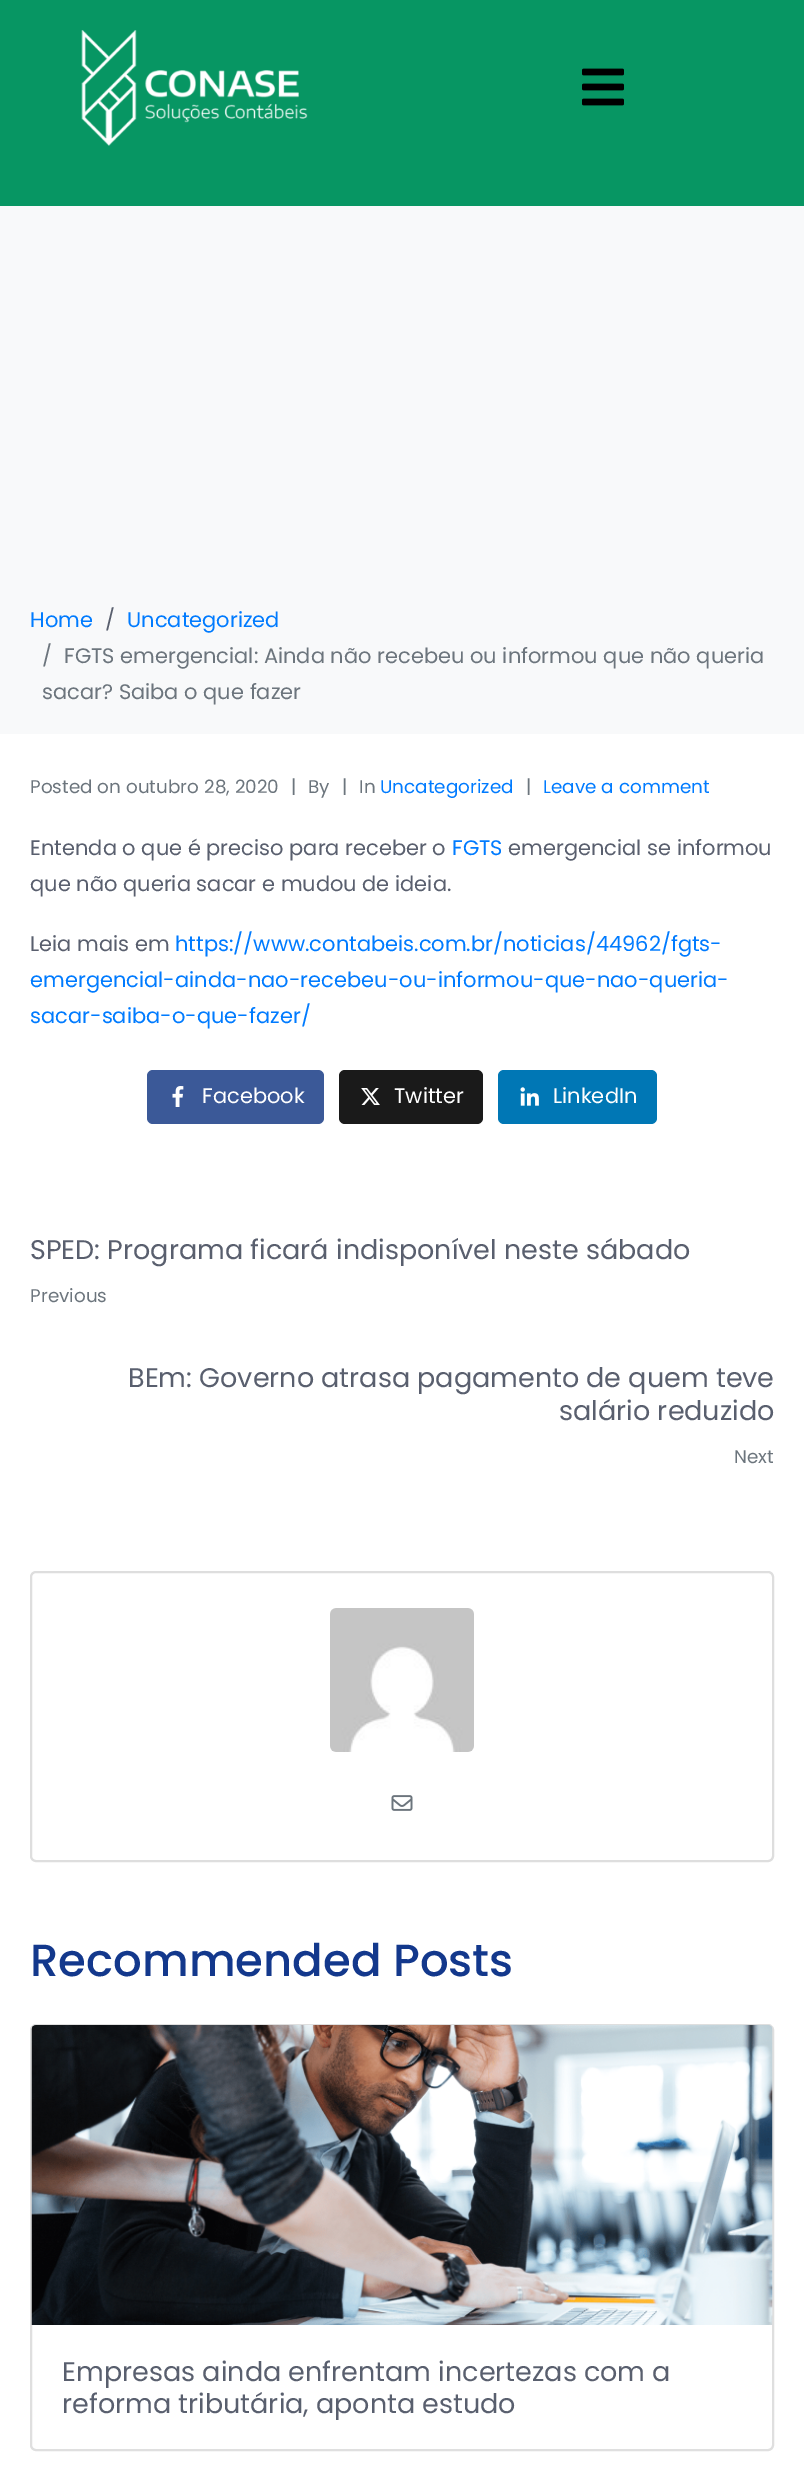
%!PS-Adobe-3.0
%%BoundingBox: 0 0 804 2469
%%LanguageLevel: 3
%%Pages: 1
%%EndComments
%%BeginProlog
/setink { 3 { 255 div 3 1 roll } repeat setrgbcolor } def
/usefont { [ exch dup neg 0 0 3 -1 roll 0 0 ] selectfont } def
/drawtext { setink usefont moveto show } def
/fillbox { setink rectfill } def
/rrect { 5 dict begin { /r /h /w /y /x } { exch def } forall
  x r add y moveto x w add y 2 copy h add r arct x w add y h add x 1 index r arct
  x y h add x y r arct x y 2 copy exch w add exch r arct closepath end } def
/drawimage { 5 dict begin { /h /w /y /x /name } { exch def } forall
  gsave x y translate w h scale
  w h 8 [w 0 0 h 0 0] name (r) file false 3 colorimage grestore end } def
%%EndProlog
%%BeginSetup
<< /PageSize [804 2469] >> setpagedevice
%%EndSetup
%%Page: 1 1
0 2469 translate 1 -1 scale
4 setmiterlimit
0 0 804 2469 255 255 255 fillbox
0 0 804 206 7 150 99 fillbox
(assets/img1.rgb) 81 30 227 116 drawimage
(assets/img2.rgb) 582 68 42 38 drawimage
0 206 804 528 248 249 250 fillbox
(Home) 30 627 /Poppins-Regular 21 0 123 255 drawtext
(/) 105 627 /Poppins-Regular 21 89 95 110 drawtext
(Uncategorized) 127 627 /Poppins-Regular 21 0 123 255 drawtext
(/) 42 663 /Poppins-Regular 21 108 117 125 drawtext
(FGTS emergencial: Ainda não recebeu ou informou que não queria) 64 663 /Poppins-Regular 21 108 117 125 drawtext
(sacar? Saiba o que fazer) 42 699 /Poppins-Regular 21 108 117 125 drawtext
(Posted on outubro 28, 2020) 30 793 /Poppins-Regular 18.4 108 117 125 drawtext
(|) 291 793 /Poppins-Regular 18.4 108 117 125 drawtext
(By) 308 793 /Poppins-Regular 18.4 108 117 125 drawtext
(|) 342 793 /Poppins-Regular 18.4 108 117 125 drawtext
(In) 359 793 /Poppins-Regular 18.4 108 117 125 drawtext
(Uncategorized) 380 793 /Poppins-Regular 18.4 0 123 255 drawtext
(|) 526 793 /Poppins-Regular 18.4 108 117 125 drawtext
(Leave a comment) 543 793 /Poppins-Regular 18.4 0 123 255 drawtext
(Entenda o que é preciso para receber o) 30 855 /Poppins-Regular 21 89 95 110 drawtext
(FGTS) 452 855 /Poppins-Regular 21 0 123 255 drawtext
(emergencial se informou) 508 855 /Poppins-Regular 21 89 95 110 drawtext
(que não queria sacar e mudou de ideia.) 30 891 /Poppins-Regular 21 89 95 110 drawtext
(Leia mais em) 30 951 /Poppins-Regular 21 89 95 110 drawtext
(https://www.contabeis.com.br/noticias/44962/fgts-) 175 951 /Poppins-Regular 21 0 123 255 drawtext
(emergencial-ainda-nao-recebeu-ou-informou-que-nao-queria-) 30 987 /Poppins-Regular 21 0 123 255 drawtext
(sacar-saiba-o-que-fazer/) 30 1023 /Poppins-Regular 21 0 123 255 drawtext
59 89 152 setink
147 1070 177 54 6 rrect fill
(assets/img3.rgb) 172 1086 12 21 drawimage
(Facebook) 202 1103 /Poppins-Regular 21 255 255 255 drawtext
26 26 26 setink
339 1070 144 54 6 rrect fill
(assets/img4.rgb) 361 1088 19 17 drawimage
(Twitter) 394 1103 /Poppins-Regular 21 255 255 255 drawtext
0 119 181 setink
498 1070 159 54 6 rrect fill
(assets/img5.rgb) 520 1087 19 19 drawimage
(LinkedIn) 553 1103 /Poppins-Regular 21 255 255 255 drawtext
(SPED: Programa ficará indisponível neste sábado) 30 1259 /Poppins-Regular 27 89 95 110 drawtext
(Previous) 30 1302 /Poppins-Regular 18.4 108 117 125 drawtext
(BEm: Governo atrasa pagamento de quem teve) 128 1387 /Poppins-Regular 27 89 95 110 drawtext
(salário reduzido) 559 1420 /Poppins-Regular 27 89 95 110 drawtext
(Next) 734 1463 /Poppins-Regular 18.4 108 117 125 drawtext
222 222 222 setink
2 setlinewidth
31 1572 742 289 5 rrect stroke
(assets/img6.rgb) 330 1608 144 144 drawimage
(assets/img7.rgb) 391 1795 22 16 drawimage
(Recommended Posts) 30 1976 /Poppins-Medium 45 19 56 140 drawtext
223 223 223 setink
31 2025 742 425 5 rrect stroke
(assets/img8.rgb) 31 2025 742 300 drawimage
(Empresas ainda enfrentam incertezas com a) 62 2381 /Poppins-Regular 27 89 95 110 drawtext
(reforma tributária, aponta estudo) 62 2413 /Poppins-Regular 27 89 95 110 drawtext
showpage
%%EOF
